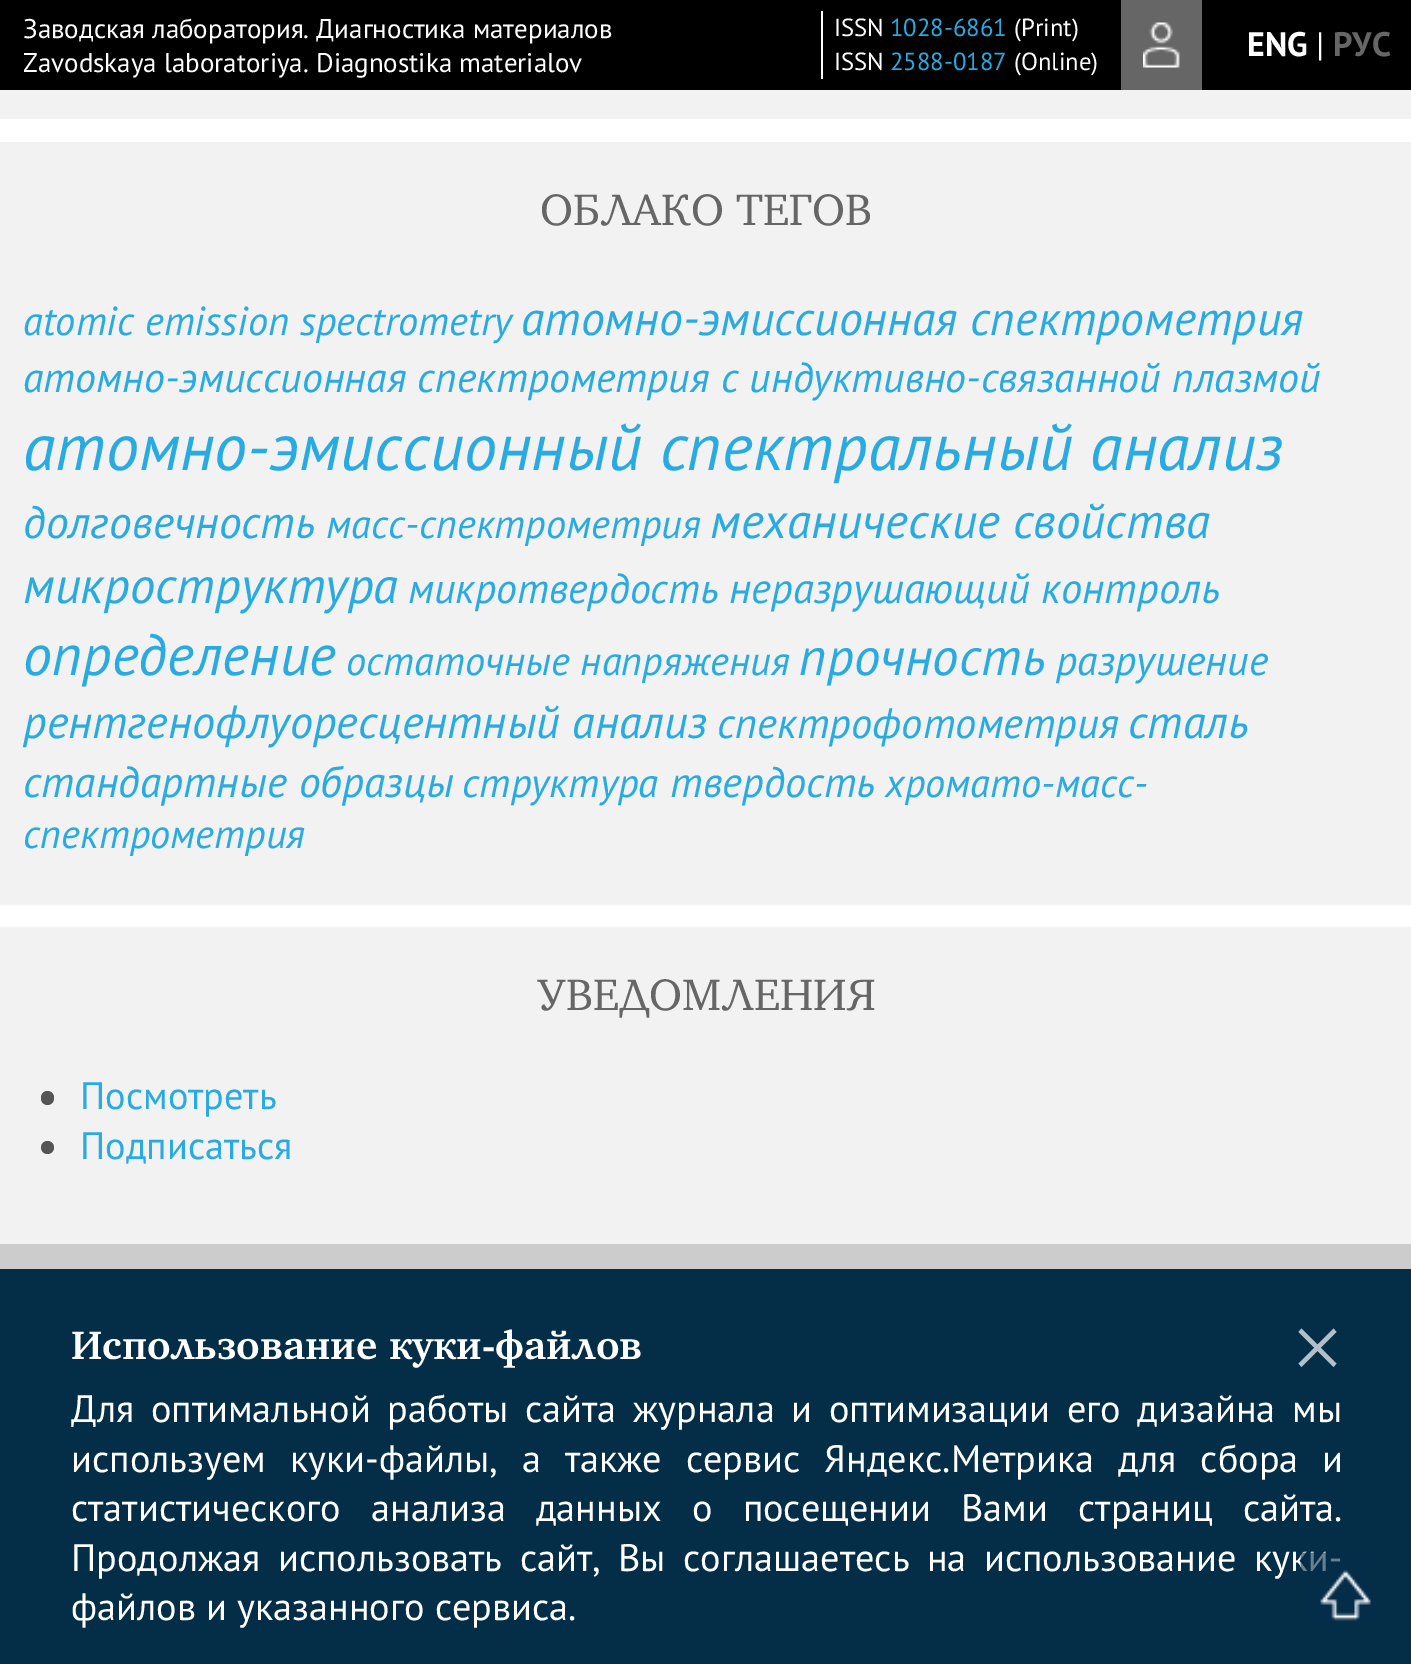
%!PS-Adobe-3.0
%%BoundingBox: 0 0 1411 1664
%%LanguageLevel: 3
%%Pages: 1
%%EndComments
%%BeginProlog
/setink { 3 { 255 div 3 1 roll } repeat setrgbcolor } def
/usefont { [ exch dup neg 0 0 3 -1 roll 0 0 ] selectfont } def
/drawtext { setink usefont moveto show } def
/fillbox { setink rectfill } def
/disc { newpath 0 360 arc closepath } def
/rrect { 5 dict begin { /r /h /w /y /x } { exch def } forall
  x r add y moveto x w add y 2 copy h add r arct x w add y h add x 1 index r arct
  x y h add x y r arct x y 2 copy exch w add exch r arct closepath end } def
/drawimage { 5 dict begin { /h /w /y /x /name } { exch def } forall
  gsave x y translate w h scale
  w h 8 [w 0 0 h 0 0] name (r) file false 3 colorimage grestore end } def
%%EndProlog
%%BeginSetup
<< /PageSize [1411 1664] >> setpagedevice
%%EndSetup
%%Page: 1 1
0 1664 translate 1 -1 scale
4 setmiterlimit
0 0 1411 1664 255 255 255 fillbox
0 0 1411 90 0 0 0 fillbox
(Заводская лаборатория. Диагностика материалов) 23 38 /PTSans-Regular 27 255 255 255 drawtext
(Zavodskaya laboratoriya. Diagnostika materialov) 23 72 /PTSans-Regular 27 255 255 255 drawtext
821 11 2 68 255 255 255 fillbox
(ISSN) 834 36 /PTSans-Regular 24.75 255 255 255 drawtext
(1028-6861) 890 36 /PTSans-Regular 24.75 41 171 226 drawtext
(\(Print\)) 1014 36 /PTSans-Regular 24.75 255 255 255 drawtext
(ISSN) 834 70 /PTSans-Regular 24.75 255 255 255 drawtext
(2588-0187) 890 70 /PTSans-Regular 24.75 41 171 226 drawtext
(\(Online\)) 1014 70 /PTSans-Regular 24.75 255 255 255 drawtext
1121 0 81 90 102 102 102 fillbox
(assets/img1.rgb) 1143 22 37 46 drawimage
(ENG) 1247 56 /PTSans-Bold 34 255 255 255 drawtext
(|) 1316 56 /PTSans-Regular 34 255 255 255 drawtext
(РУС) 1333 56 /PTSans-Bold 34 102 102 102 drawtext
0 90 1411 29 242 242 242 fillbox
0 142 1411 763 242 242 242 fillbox
(ОБЛАКО ТЕГОВ) 540 225 /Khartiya-Regular 45 102 102 102 drawtext
(atomic emission spectrometry) 23 335 /PTSans-Italic 40.5 41 171 226 drawtext
(атомно-эмиссионная спектрометрия) 521 335 /PTSans-Italic 47.75 41 171 226 drawtext
(атомно-эмиссионная спектрометрия с индуктивно-связанной плазмой) 23 392 /PTSans-Italic 41.9 41 171 226 drawtext
(атомно-эмиссионный спектральный анализ) 23 470 /PTSans-Italic 66.25 41 171 226 drawtext
(долговечность) 23 538 /PTSans-Italic 45.5 41 171 226 drawtext
(масс-спектрометрия) 326 538 /PTSans-Italic 40.5 41 171 226 drawtext
(механические свойства) 710 538 /PTSans-Italic 49.25 41 171 226 drawtext
(микроструктура) 23 603 /PTSans-Italic 50.75 41 171 226 drawtext
(микротвердость) 408 603 /PTSans-Italic 41.9 41 171 226 drawtext
(неразрушающий контроль) 729 603 /PTSans-Italic 42.7 41 171 226 drawtext
(определение) 23 675 /PTSans-Italic 58 41 171 226 drawtext
(остаточные напряжения) 346 675 /PTSans-Italic 40.5 41 171 226 drawtext
(прочность) 799 675 /PTSans-Italic 53 41 171 226 drawtext
(разрушение) 1056 675 /PTSans-Italic 41.9 41 171 226 drawtext
(рентгенофлуоресцентный анализ) 23 738 /PTSans-Italic 46.3 41 171 226 drawtext
(спектрофотометрия) 717 738 /PTSans-Italic 42.7 41 171 226 drawtext
(сталь) 1128 738 /PTSans-Italic 46.3 41 171 226 drawtext
(стандартные образцы) 23 797 /PTSans-Italic 43.5 41 171 226 drawtext
(структура) 462 797 /PTSans-Italic 41 41 171 226 drawtext
(твердость) 670 797 /PTSans-Italic 42.7 41 171 226 drawtext
(хромато-масс-) 885 797 /PTSans-Italic 40.5 41 171 226 drawtext
(спектрометрия) 23 848 /PTSans-Italic 40.5 41 171 226 drawtext
0 927 1411 317 242 242 242 fillbox
(УВЕДОМЛЕНИЯ) 537 1010 /Khartiya-Regular 45 102 102 102 drawtext
85 85 85 setink
41 1091 13 14 6.5 rrect fill
(Посмотреть) 80 1109 /PTSans-Regular 38.25 41 171 226 drawtext
85 85 85 setink
47.5 1147.5 6.5 disc fill
(Подписаться) 80 1159 /PTSans-Regular 38.25 41 171 226 drawtext
0 1244 1411 25 204 204 204 fillbox
0 1269 1411 395 4 46 71 fillbox
255 255 255 setink
71 1571 moveto 7.25 0 32 (Продолжая использовать сайт, Вы соглашаетесь на использование куки-) widthshow
(assets/img2.rgb) 1300 1552 71 69 drawimage
(Использование куки-файлов) 71 1359 /Khartiya-Bold 40.5 255 255 255 drawtext
180 192 200 setink
1333.5 1328.5 moveto 1336.5 1332 lineto 1301.5 1367 lineto 1298.5 1363.5 lineto closepath fill
1298.5 1332 moveto 1301.5 1328.5 lineto 1336.5 1363.5 lineto 1333.5 1367 lineto closepath fill
/PTSans-Regular 38.25 usefont
255 255 255 setink
71 1422 moveto 6.5 0 32 (Для оптимальной работы сайта журнала и оптимизации его дизайна мы) widthshow
71 1472 moveto 13.75 0 32 (используем куки-файлы, а также сервис Яндекс.Метрика для сбора и) widthshow
71 1521 moveto 20 0 32 (статистического анализа данных о посещении Вами страниц сайта.) widthshow
(файлов и указанного сервиса.) 71 1620 /PTSans-Regular 38.25 255 255 255 drawtext
showpage
%%EOF
